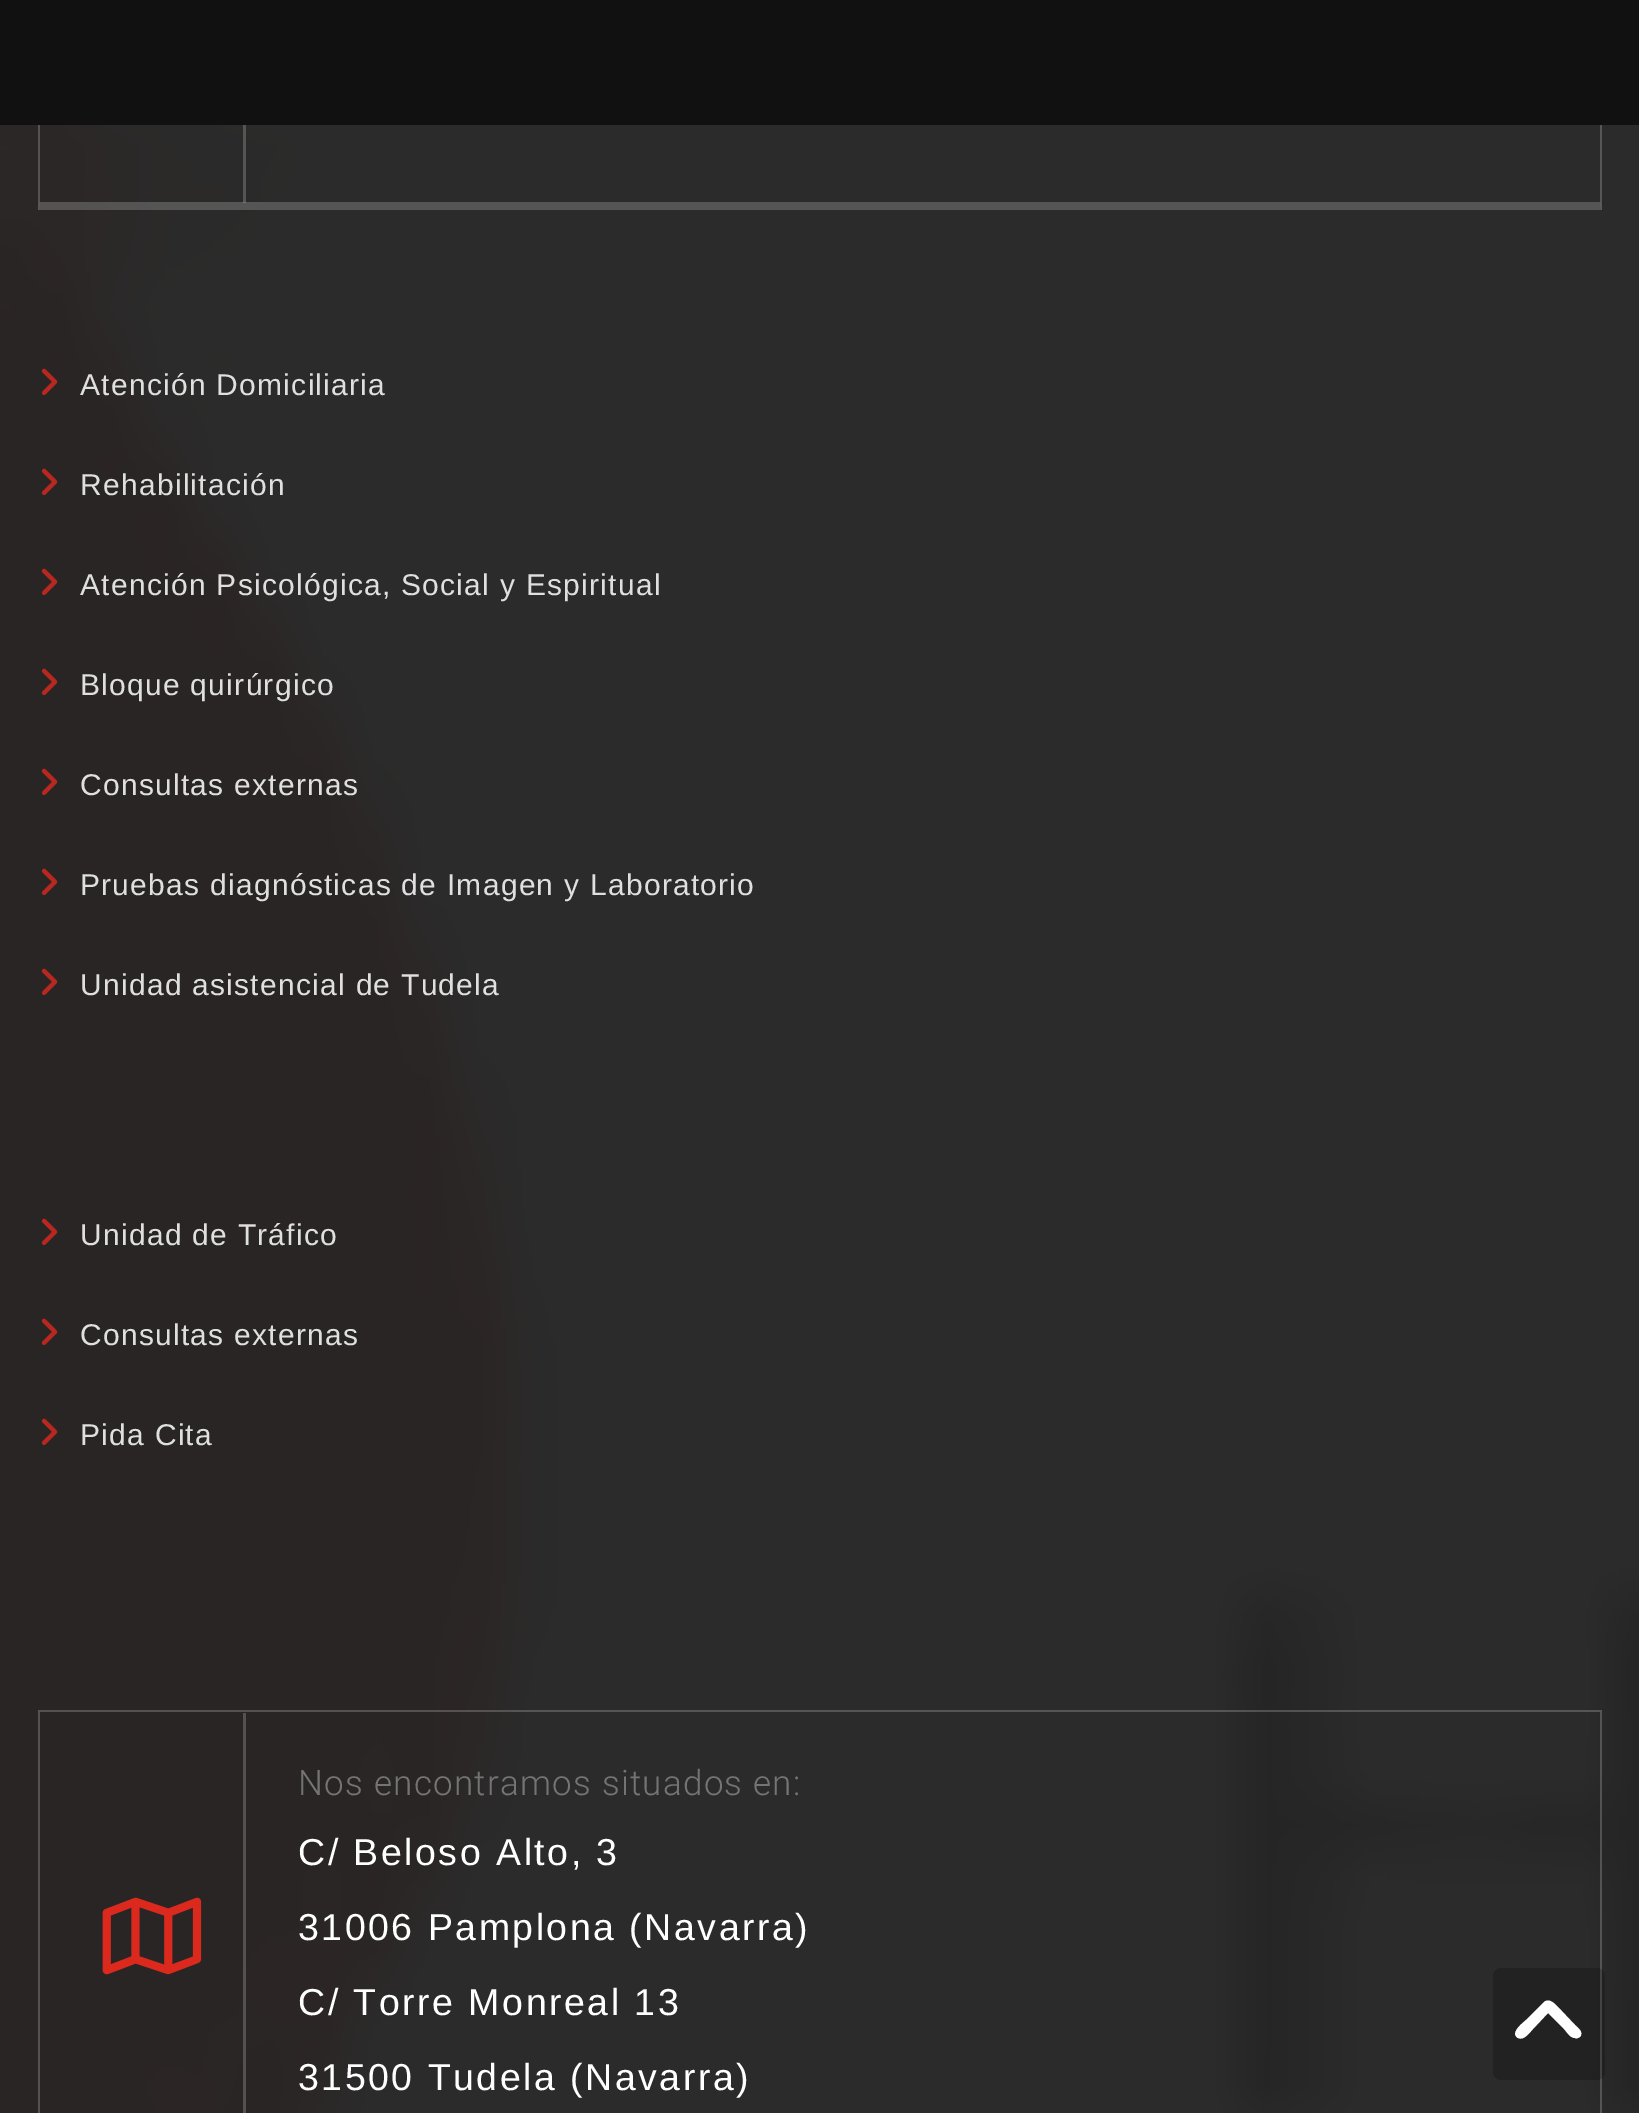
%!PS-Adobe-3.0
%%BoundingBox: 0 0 1639 2113
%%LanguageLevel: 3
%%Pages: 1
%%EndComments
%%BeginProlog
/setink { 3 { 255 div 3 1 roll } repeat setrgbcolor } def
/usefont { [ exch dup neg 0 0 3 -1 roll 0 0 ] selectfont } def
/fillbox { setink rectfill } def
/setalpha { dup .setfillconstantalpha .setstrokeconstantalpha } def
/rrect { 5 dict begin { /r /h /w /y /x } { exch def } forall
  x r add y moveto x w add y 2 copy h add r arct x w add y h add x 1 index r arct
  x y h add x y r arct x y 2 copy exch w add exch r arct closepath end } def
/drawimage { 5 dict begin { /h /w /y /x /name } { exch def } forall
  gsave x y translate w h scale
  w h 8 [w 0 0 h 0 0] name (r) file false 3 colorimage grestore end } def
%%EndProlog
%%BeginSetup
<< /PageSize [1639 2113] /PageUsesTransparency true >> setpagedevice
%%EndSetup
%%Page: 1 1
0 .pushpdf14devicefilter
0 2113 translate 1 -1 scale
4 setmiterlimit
0 0 1639 2113 255 255 255 fillbox
(assets/img1.rgb) 0 125 1639 1988 drawimage
86 86 86 setink
1602 -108 moveto 1602 210 lineto 1600 202 lineto 1600 -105 lineto closepath fill
0.2 setalpha
255 255 255 setink
1602 210 moveto 38 210 lineto 40 202 lineto 1600 202 lineto closepath fill
38 210 moveto 38 -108 lineto 40 -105 lineto 40 202 lineto closepath fill
1 setalpha
0 0 1639 125 17 17 17 fillbox
0.2 setalpha
243 125 3 78 255 255 255 fillbox
1 setalpha
(assets/img2.rgb) 41 368 17 27 drawimage
/LiberationSans-Regular 30 usefont
223 223 223 setink
80 395 moveto 1.25 0 (Atención Domiciliaria) ashow
(assets/img3.rgb) 41 468 17 27 drawimage
80 495 moveto 1.25 0 (Rehabilitación) ashow
(assets/img4.rgb) 41 568 17 27 drawimage
80 595 moveto 1.25 0 (Atención Psicológica, Social y Espiritual) ashow
(assets/img5.rgb) 41 668 17 27 drawimage
80 695 moveto 1.25 0 (Bloque quirúrgico) ashow
(assets/img6.rgb) 41 768 17 27 drawimage
80 795 moveto 1.25 0 (Consultas externas) ashow
(assets/img7.rgb) 41 868 17 27 drawimage
80 895 moveto 1.25 0 (Pruebas diagnósticas de Imagen y Laboratorio) ashow
(assets/img6.rgb) 41 968 17 27 drawimage
80 995 moveto 1.25 0 (Unidad asistencial de Tudela) ashow
(assets/img5.rgb) 41 1218 17 27 drawimage
80 1245 moveto 1.25 0 (Unidad de Tráfico) ashow
(assets/img6.rgb) 41 1318 17 27 drawimage
80 1345 moveto 1.25 0 (Consultas externas) ashow
(assets/img8.rgb) 41 1418 17 27 drawimage
80 1445 moveto 1.25 0 (Pida Cita) ashow
0.2 setalpha
255 255 255 setink
38 1710 moveto 1602 1710 lineto 1600 1712 lineto 40 1712 lineto closepath fill
1602 1710 moveto 1602 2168 lineto 1600 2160 lineto 1600 1712 lineto closepath fill
38 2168 moveto 38 1710 lineto 40 1712 lineto 40 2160 lineto closepath fill
1 setalpha
243 1713 3 400 85 81 80 fillbox
(assets/img9.rgb) 102 1897 100 78 drawimage
/Roboto-Light 35 usefont
117 116 116 setink
298 1795 moveto 1.25 0 (Nos encontramos situados en:) ashow
/LiberationSans-Regular 37.5 usefont
255 255 255 setink
298 1865 moveto 2.5 0 (C/ Beloso Alto, 3) ashow
298 1940 moveto 2.5 0 (31006 Pamplona \(Navarra\)) ashow
298 2015 moveto 2.5 0 (C/ Torre Monreal 13) ashow
298 2090 moveto 2.5 0 (31500 Tudela \(Navarra\)) ashow
0.2 setalpha
0 0 0 setink
1493 1968 112 112 8 rrect fill
1 setalpha
255 255 255 setink
1544 2002 moveto 1549 1998 1554 2003 1557 2006 curveto 1575 2025 lineto 1578 2028 1584 2032 1580 2037 curveto 1578 2038 1576 2039 1575 2038 curveto 1570 2038 1567 2032 1564 2029 curveto 1548 2013 lineto 1533 2029 lineto 1530 2032 1524 2041 1518 2038 curveto 1509 2033 1524 2022 1526 2020 curveto closepath fill
.poppdf14devicefilter showpage
%%EOF
